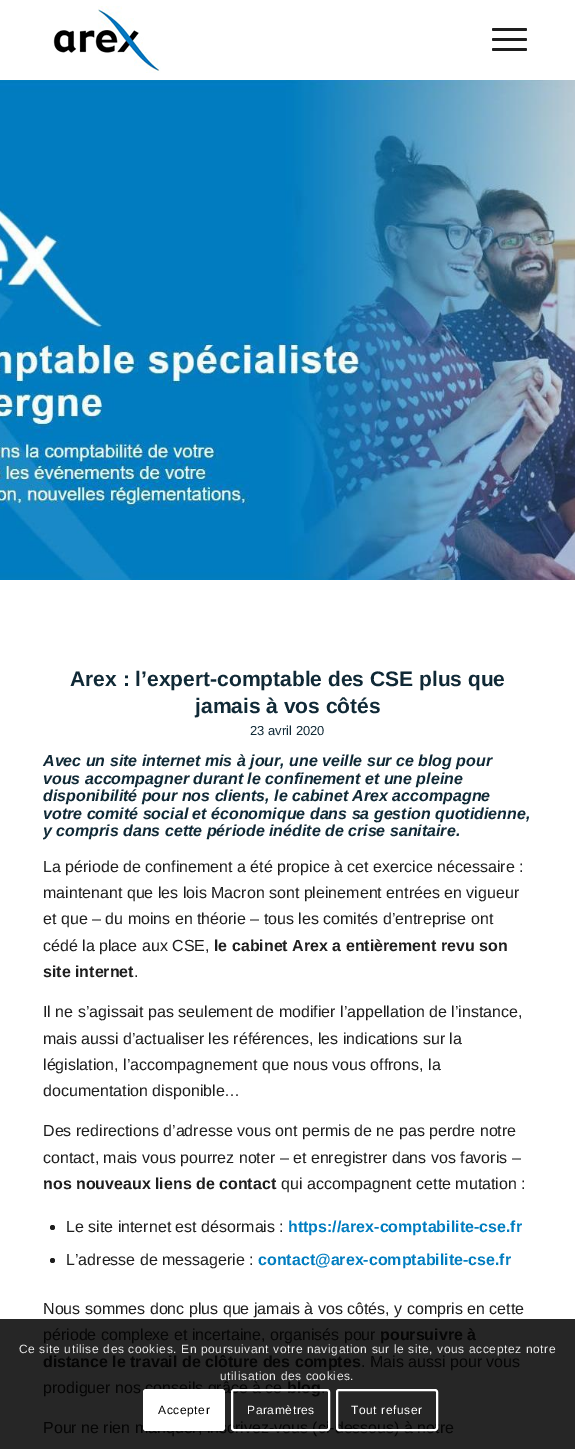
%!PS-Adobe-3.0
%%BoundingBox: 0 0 575 1449
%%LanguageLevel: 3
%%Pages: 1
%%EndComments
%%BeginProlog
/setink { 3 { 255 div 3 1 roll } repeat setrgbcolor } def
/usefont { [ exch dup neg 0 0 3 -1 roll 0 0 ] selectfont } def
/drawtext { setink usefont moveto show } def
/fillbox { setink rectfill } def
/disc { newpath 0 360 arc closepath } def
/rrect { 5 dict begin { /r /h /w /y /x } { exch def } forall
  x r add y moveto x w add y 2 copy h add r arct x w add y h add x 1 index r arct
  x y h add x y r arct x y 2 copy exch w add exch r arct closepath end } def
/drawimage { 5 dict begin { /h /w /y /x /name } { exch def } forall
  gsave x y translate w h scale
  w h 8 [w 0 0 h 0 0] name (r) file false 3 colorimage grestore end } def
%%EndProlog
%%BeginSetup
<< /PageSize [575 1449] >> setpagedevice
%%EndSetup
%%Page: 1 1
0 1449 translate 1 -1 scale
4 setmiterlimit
0 0 575 1449 255 255 255 fillbox
0 1319 575 130 38 38 38 fillbox
(assets/img1.rgb) 53 6 108 67 drawimage
30 30 30 setink
492 38 35 3 1.5 rrect fill
492 28 35 3 1.5 rrect fill
492 48 35 3 1.5 rrect fill
(assets/img2.rgb) 0 80 575 500 drawimage
(Arex : l’expert-comptable des CSE plus que) 70 686 /LiberationSans-Bold 21 16 41 54 drawtext
(jamais à vos côtés) 195 713 /LiberationSans-Bold 21 16 41 54 drawtext
(23 avril 2020) 250 735 /LiberationSans-Regular 13 16 41 54 drawtext
(Avec un site internet mis à jour, une veille sur ce blog pour) 43 766 /LiberationSans-BoldItalic 16 16 41 54 drawtext
(vous accompagner durant le confinement et une pleine) 43 784 /LiberationSans-BoldItalic 16 16 41 54 drawtext
(disponibilité pour nos clients, le cabinet Arex accompagne) 43 801 /LiberationSans-BoldItalic 16 16 41 54 drawtext
(votre comité social et économique dans sa gestion quotidienne,) 43 819 /LiberationSans-BoldItalic 16 16 41 54 drawtext
gsave
43 670 489 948 rectclip
(y compris dans cette période inédite de crise sanitaire.) 43 836 /LiberationSans-BoldItalic 16 16 41 54 drawtext
grestore
(La période de confinement a été propice à cet exercice nécessaire :) 43 872 /LiberationSans-Regular 16 30 30 30 drawtext
(maintenant que les lois Macron sont pleinement entrées en vigueur) 43 898 /LiberationSans-Regular 16 30 30 30 drawtext
(et que – du moins en théorie – tous les comités d’entreprise ont) 43 924 /LiberationSans-Regular 16 30 30 30 drawtext
(cédé la place aux CSE,) 43 951 /LiberationSans-Regular 16 30 30 30 drawtext
(le cabinet Arex a entièrement revu son) 214 951 /LiberationSans-Bold 16 30 30 30 drawtext
(site internet) 43 977 /LiberationSans-Bold 16 30 30 30 drawtext
(.) 134 977 /LiberationSans-Regular 16 30 30 30 drawtext
(Il ne s’agissait pas seulement de modifier l’appellation de l’instance,) 43 1017 /LiberationSans-Regular 16 30 30 30 drawtext
(mais aussi d’actualiser les références, les indications sur la) 43 1044 /LiberationSans-Regular 16 30 30 30 drawtext
(législation, l’accompagnement que nous vous offrons, la) 43 1070 /LiberationSans-Regular 16 30 30 30 drawtext
(documentation disponible…) 43 1096 /LiberationSans-Regular 16 30 30 30 drawtext
(Des redirections d’adresse vous ont permis de ne pas perdre notre) 43 1136 /LiberationSans-Regular 16 30 30 30 drawtext
(contact, mais vous pourrez noter – et enregistrer dans vos favoris –) 43 1163 /LiberationSans-Regular 16 30 30 30 drawtext
(nos nouveaux liens de contact) 43 1189 /LiberationSans-Bold 16 30 30 30 drawtext
(qui accompagnent cette mutation :) 281 1189 /LiberationSans-Regular 16 30 30 30 drawtext
52.5 1227.5 2.5 disc fill
(Le site internet est désormais :) 66 1232 /LiberationSans-Regular 16 30 30 30 drawtext
(https://arex-comptabilite-cse.fr) 288 1232 /LiberationSans-Bold 16 0 125 192 drawtext
30 30 30 setink
52.5 1260.5 2.5 disc fill
(L’adresse de messagerie :) 66 1265 /LiberationSans-Regular 16 30 30 30 drawtext
(contact@arex-comptabilite-cse.fr) 258 1265 /LiberationSans-Bold 16 0 125 192 drawtext
(Nous sommes donc plus que jamais à vos côtés, y compris en cette) 43 1314 /LiberationSans-Regular 16 30 30 30 drawtext
(période complexe et incertaine, organisés pour) 43 1340 /LiberationSans-Regular 16 5 5 5 drawtext
(poursuivre à) 380 1340 /LiberationSans-Bold 16 5 5 5 drawtext
(distance le travail de clôture des comptes) 43 1367 /LiberationSans-Bold 16 5 5 5 drawtext
(. Mais aussi pour vous) 361 1367 /LiberationSans-Regular 16 5 5 5 drawtext
(prodiguer nos conseils grâce à ce) 43 1393 /LiberationSans-Regular 16 5 5 5 drawtext
(blog) 287 1393 /LiberationSans-Bold 16 5 5 5 drawtext
(.) 321 1393 /LiberationSans-Regular 16 5 5 5 drawtext
(Pour ne rien manquer, inscrivez-vous \(ci-dessous\) à notre) 43 1433 /LiberationSans-Regular 16 5 5 5 drawtext
/LiberationSans-Regular 12 usefont
233 233 233 setink
19 1353 moveto 0.6 0 (Ce site utilise des cookies. En poursuivant votre navigation sur le site, vous acceptez notre) ashow
220 1380 moveto 0.6 0 (utilisation des cookies.) ashow
255 255 255 setink
143 1389 82 42 3 rrect fill
5 5 5 setink
158 1414 moveto 0.6 0 (Accepter) ashow
255 255 255 setink
2 setlinewidth
232 1390 97 40 2 rrect stroke
247 1414 moveto 0.6 0 (Paramètres) ashow
337 1390 100 40 2 rrect stroke
351 1414 moveto 0.6 0 (Tout refuser) ashow
showpage
%%EOF
